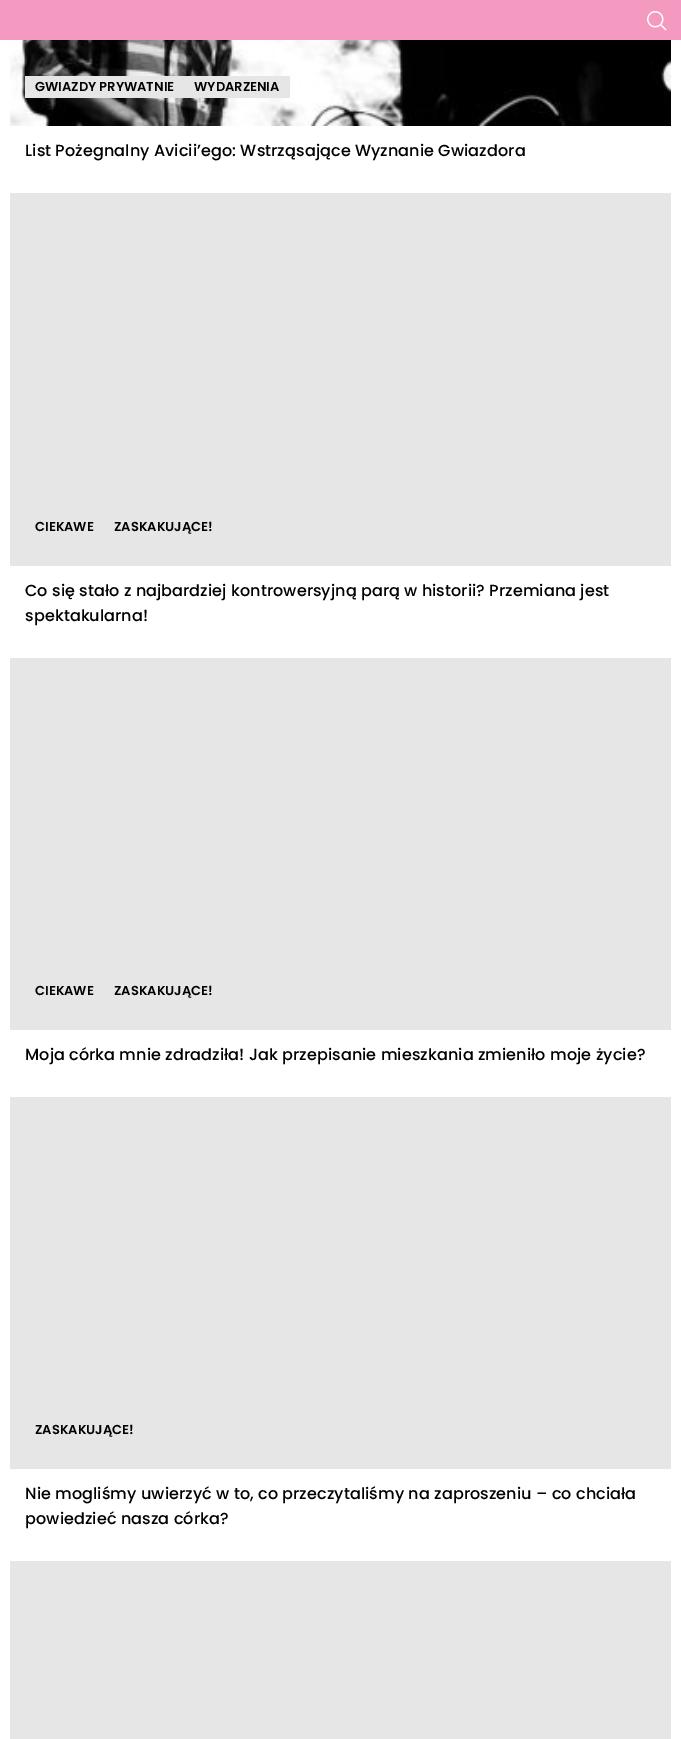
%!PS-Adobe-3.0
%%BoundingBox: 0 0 681 1739
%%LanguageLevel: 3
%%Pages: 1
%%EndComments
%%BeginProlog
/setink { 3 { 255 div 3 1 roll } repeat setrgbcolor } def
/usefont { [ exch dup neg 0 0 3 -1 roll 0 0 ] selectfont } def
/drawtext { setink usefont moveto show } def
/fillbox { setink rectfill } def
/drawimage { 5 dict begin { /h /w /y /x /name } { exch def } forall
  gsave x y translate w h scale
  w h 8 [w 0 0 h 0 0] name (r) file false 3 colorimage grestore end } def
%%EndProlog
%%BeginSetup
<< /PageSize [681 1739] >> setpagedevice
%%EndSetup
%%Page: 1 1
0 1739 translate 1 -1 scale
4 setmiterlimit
0 0 681 1739 255 255 255 fillbox
0 0 681 40 244 154 193 fillbox
(assets/img1.rgb) 647 11 20 20 drawimage
(assets/img2.rgb) 10 40 661 86 drawimage
25 76 265 22 230 230 230 fillbox
(GWIAZDY PRYWATNIE) 35 91 /Poppins-SemiBold 13 0 0 0 drawtext
(WYDARZENIA) 194 91 /Poppins-SemiBold 13 0 0 0 drawtext
/Poppins-Medium 16 usefont
25 156 moveto 0.1 0 (List Pożegnalny Avicii’ego: Wstrząsające Wyznanie Gwiazdora) ashow
10 193 661 373 230 230 230 fillbox
(CIEKAWE) 35 531 /Poppins-SemiBold 13 0 0 0 drawtext
(ZASKAKUJĄCE!) 114 531 /Poppins-SemiBold 13 0 0 0 drawtext
/Poppins-Medium 16 usefont
25 596 moveto 0.1 0 (Co się stało z najbardziej kontrowersyjną parą w historii? Przemiana jest) ashow
25 621 moveto 0.1 0 (spektakularna!) ashow
10 658 661 372 230 230 230 fillbox
(CIEKAWE) 35 995 /Poppins-SemiBold 13 0 0 0 drawtext
(ZASKAKUJĄCE!) 114 995 /Poppins-SemiBold 13 0 0 0 drawtext
/Poppins-Medium 16 usefont
25 1060 moveto 0.1 0 (Moja córka mnie zdradziła! Jak przepisanie mieszkania zmieniło moje życie?) ashow
10 1097 661 372 230 230 230 fillbox
(ZASKAKUJĄCE!) 35 1434 /Poppins-SemiBold 13 0 0 0 drawtext
/Poppins-Medium 16 usefont
25 1499 moveto 0.1 0 (Nie mogliśmy uwierzyć w to, co przeczytaliśmy na zaproszeniu – co chciała) ashow
25 1524 moveto 0.1 0 (powiedzieć nasza córka?) ashow
10 1561 661 178 230 230 230 fillbox
showpage
%%EOF
